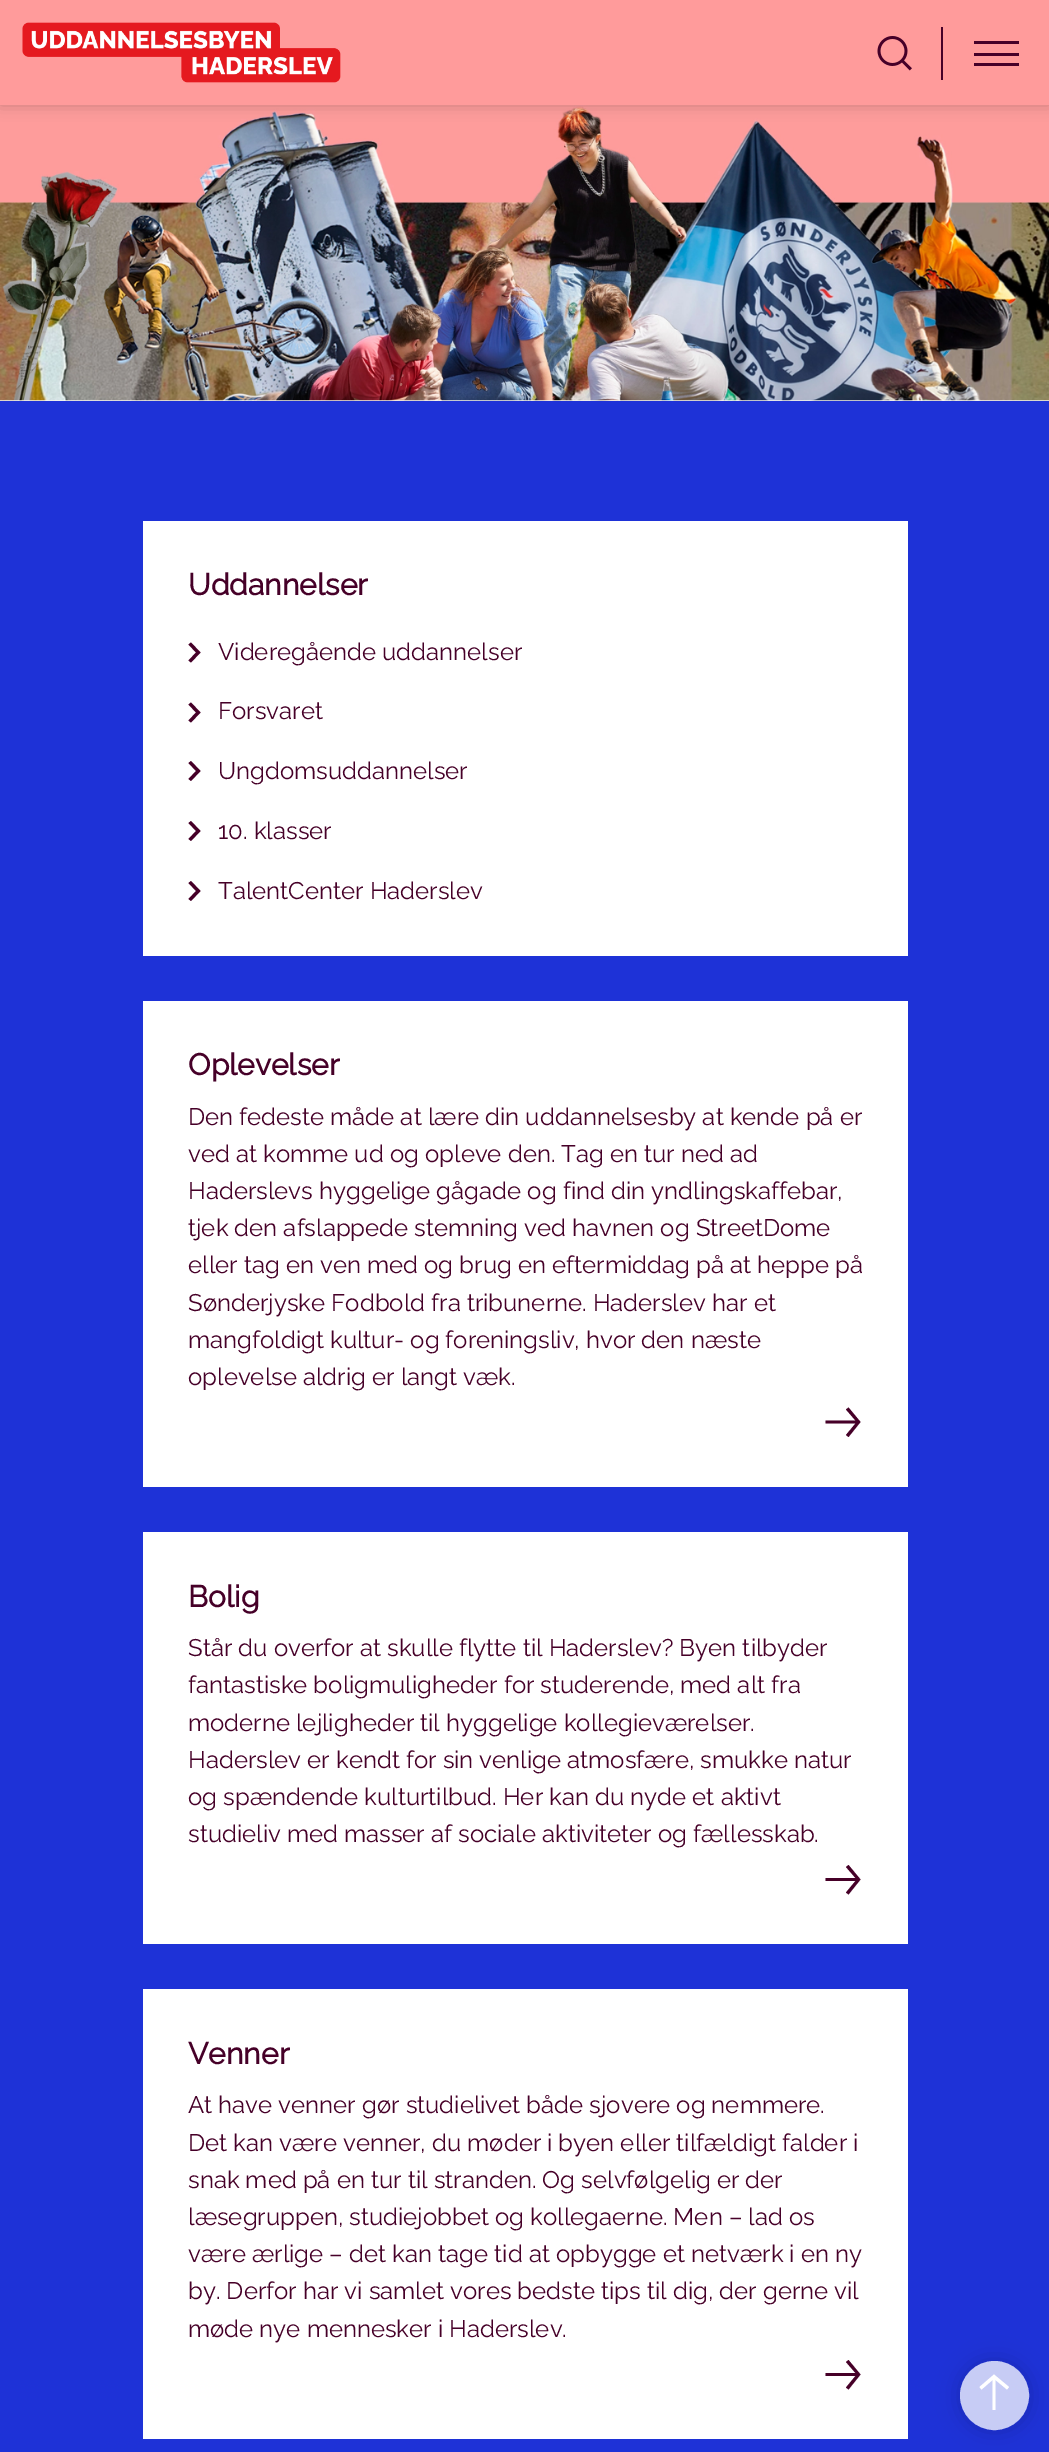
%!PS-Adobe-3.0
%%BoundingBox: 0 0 1049 2452
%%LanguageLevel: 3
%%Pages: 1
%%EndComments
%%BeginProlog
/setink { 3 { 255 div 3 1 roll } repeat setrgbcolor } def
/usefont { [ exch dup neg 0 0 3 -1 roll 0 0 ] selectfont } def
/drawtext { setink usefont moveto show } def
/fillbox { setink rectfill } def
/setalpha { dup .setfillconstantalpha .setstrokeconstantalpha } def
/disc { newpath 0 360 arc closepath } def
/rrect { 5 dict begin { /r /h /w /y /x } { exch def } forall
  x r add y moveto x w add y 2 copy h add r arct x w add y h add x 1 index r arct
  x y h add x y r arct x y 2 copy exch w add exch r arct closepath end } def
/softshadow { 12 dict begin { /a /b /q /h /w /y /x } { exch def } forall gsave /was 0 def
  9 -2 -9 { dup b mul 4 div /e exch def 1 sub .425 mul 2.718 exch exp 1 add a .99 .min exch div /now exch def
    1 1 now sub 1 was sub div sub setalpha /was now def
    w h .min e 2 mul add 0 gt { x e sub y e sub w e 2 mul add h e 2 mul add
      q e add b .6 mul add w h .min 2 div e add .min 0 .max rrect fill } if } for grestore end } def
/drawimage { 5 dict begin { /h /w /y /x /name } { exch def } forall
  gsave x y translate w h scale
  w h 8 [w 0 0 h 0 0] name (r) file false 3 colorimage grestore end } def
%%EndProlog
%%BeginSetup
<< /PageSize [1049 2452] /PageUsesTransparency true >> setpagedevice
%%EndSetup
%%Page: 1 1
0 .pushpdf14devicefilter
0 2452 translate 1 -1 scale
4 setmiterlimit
0 0 1049 2452 245 245 240 fillbox
(assets/img3.rgb) 0 105 1049 296 drawimage
0 0 0 setink
0 0 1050 105 0 7.5 0.2 softshadow
0 0 1049 105 255 155 155 fillbox
(assets/img1.rgb) 22 22 319 61 drawimage
(assets/img2.rgb) 877 36 35 35 drawimage
941 27 2 53 70 0 40 fillbox
974 41 45 3 70 0 40 fillbox
974 53 45 3 70 0 40 fillbox
974 63 45 3 70 0 40 fillbox
0 401 1049 2051 30 50 215 fillbox
143 521 765 435 255 255 255 fillbox
(Uddannelser) 188 595 /Raleway-Bold 30 70 0 40 drawtext
200.5 652.5 moveto 191 662.5 lineto 188.5 660.5 lineto 196 652.5 lineto 188.5 644.5 lineto 191 642.5 lineto closepath fill
(Videregående uddannelser) 218 660 /Raleway-Regular 24 70 0 40 drawtext
200.5 712.5 moveto 191 722.5 lineto 188.5 720.5 lineto 196 712.5 lineto 188.5 704.5 lineto 191 702.5 lineto closepath fill
(Forsvaret) 218 719 /Raleway-Regular 24 70 0 40 drawtext
200.5 771 moveto 191 781 lineto 188.5 779 lineto 196 771 lineto 188.5 763 lineto 191 761 lineto closepath fill
(Ungdomsuddannelser) 218 779 /Raleway-Regular 24 70 0 40 drawtext
200.5 831 moveto 191 841 lineto 188.5 839 lineto 196 831 lineto 188.5 823 lineto 191 821 lineto closepath fill
(10. klasser) 218 839 /Raleway-Regular 24 70 0 40 drawtext
200.5 891 moveto 191 901 lineto 188.5 899 lineto 196 891 lineto 188.5 883 lineto 191 881 lineto closepath fill
(TalentCenter Haderslev) 218 899 /Raleway-Regular 24 70 0 40 drawtext
143 1001 765 486 255 255 255 fillbox
(Oplevelser) 188 1075 /Raleway-Bold 30 70 0 40 drawtext
(Den fedeste måde at lære din uddannelsesby at kende på er) 188 1125 /Raleway-Regular 24 70 0 40 drawtext
(ved at komme ud og opleve den. Tag en tur ned ad) 188 1162 /Raleway-Regular 24 70 0 40 drawtext
(Haderslevs hyggelige gågade og find din yndlingskaffebar,) 188 1199 /Raleway-Regular 24 70 0 40 drawtext
(tjek den afslappede stemning ved havnen og StreetDome) 188 1236 /Raleway-Regular 24 70 0 40 drawtext
(eller tag en ven med og brug en eftermiddag på at heppe på) 188 1273 /Raleway-Regular 24 70 0 40 drawtext
(Sønderjyske Fodbold fra tribunerne. Haderslev har et) 188 1311 /Raleway-Regular 24 70 0 40 drawtext
(mangfoldigt kultur- og foreningsliv, hvor den næste) 188 1348 /Raleway-Regular 24 70 0 40 drawtext
(oplevelse aldrig er langt væk.) 188 1385 /Raleway-Regular 24 70 0 40 drawtext
848.5 1407.5 moveto 846 1409.5 lineto 855.5 1420.5 lineto 825.5 1420.5 lineto 825.5 1423.5 lineto 855.5 1423.5 lineto 846 1435 lineto 848.5 1437 lineto 860.5 1422 lineto closepath fill
143 1532 765 412 255 255 255 fillbox
(Bolig) 188 1607 /Raleway-Bold 30 70 0 40 drawtext
(Står du overfor at skulle flytte til Haderslev? Byen tilbyder) 188 1656 /Raleway-Regular 24 70 0 40 drawtext
(fantastiske boligmuligheder for studerende, med alt fra) 188 1693 /Raleway-Regular 24 70 0 40 drawtext
(moderne lejligheder til hyggelige kollegieværelser.) 188 1731 /Raleway-Regular 24 70 0 40 drawtext
(Haderslev er kendt for sin venlige atmosfære, smukke natur) 188 1768 /Raleway-Regular 24 70 0 40 drawtext
(og spændende kulturtilbud. Her kan du nyde et aktivt) 188 1805 /Raleway-Regular 24 70 0 40 drawtext
(studieliv med masser af sociale aktiviteter og fællesskab.) 188 1842 /Raleway-Regular 24 70 0 40 drawtext
848.5 1865 moveto 846 1867 lineto 855.5 1878 lineto 825.5 1878 lineto 825.5 1881 lineto 855.5 1881 lineto 846 1892.5 lineto 848.5 1894.5 lineto 860.5 1879.5 lineto closepath fill
143 1989 765 450 255 255 255 fillbox
(Venner) 188 2064 /Raleway-Bold 30 70 0 40 drawtext
(At have venner gør studielivet både sjovere og nemmere.) 188 2113 /Raleway-Regular 24 70 0 40 drawtext
(Det kan være venner, du møder i byen eller tilfældigt falder i) 188 2151 /Raleway-Regular 24 70 0 40 drawtext
(snak med på en tur til stranden. Og selvfølgelig er der) 188 2188 /Raleway-Regular 24 70 0 40 drawtext
(læsegruppen, studiejobbet og kollegaerne. Men – lad os) 188 2225 /Raleway-Regular 24 70 0 40 drawtext
(være ærlige – det kan tage tid at opbygge et netværk i en ny) 188 2262 /Raleway-Regular 24 70 0 40 drawtext
(by. Derfor har vi samlet vores bedste tips til dig, der gerne vil) 188 2299 /Raleway-Regular 24 70 0 40 drawtext
(møde nye mennesker i Haderslev.) 188 2337 /Raleway-Regular 24 70 0 40 drawtext
848.5 2360 moveto 846 2362 lineto 855.5 2373 lineto 825.5 2373 lineto 825.5 2376 lineto 855.5 2376 lineto 846 2387.5 lineto 848.5 2389.5 lineto 860.5 2374.5 lineto closepath fill
8 13 54 setink
959 2360 72 72 36 11 0.2 softshadow
199 204 245 setink
994.5 2395.5 33 disc gsave fill grestore
3 setlinewidth
stroke
255 255 255 setink
979.5 2387 moveto 981.5 2389.5 lineto 992.5 2380 lineto 992.5 2410 lineto 995.5 2410 lineto 995.5 2380 lineto 1007 2389.5 lineto 1009 2387 lineto 994 2374.5 lineto closepath fill
.poppdf14devicefilter showpage
%%EOF
